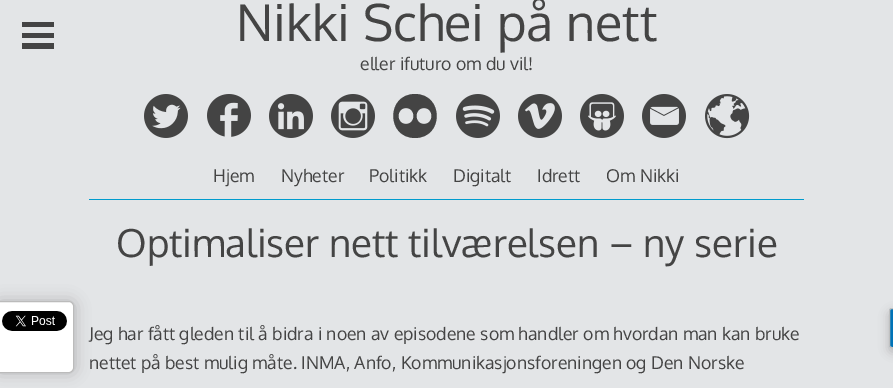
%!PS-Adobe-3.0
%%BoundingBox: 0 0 893 388
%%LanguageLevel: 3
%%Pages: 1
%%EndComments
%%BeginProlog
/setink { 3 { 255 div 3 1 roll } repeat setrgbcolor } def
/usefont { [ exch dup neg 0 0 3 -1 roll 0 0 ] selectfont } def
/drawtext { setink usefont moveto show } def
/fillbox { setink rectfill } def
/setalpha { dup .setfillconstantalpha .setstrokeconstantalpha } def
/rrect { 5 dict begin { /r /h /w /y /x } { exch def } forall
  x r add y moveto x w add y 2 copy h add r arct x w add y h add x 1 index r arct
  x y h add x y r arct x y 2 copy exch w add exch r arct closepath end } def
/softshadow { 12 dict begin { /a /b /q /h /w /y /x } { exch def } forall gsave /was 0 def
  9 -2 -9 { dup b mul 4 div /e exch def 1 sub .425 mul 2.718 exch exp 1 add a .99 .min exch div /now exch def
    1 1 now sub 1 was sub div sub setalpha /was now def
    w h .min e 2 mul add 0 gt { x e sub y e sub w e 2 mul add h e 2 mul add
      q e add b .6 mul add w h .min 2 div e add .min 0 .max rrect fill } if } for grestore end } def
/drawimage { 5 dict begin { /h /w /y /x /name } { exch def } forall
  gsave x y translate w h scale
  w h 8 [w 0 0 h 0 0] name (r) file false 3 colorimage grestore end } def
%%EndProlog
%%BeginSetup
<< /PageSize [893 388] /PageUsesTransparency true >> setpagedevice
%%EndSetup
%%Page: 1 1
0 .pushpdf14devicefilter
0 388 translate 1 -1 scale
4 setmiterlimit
0 0 893 388 227 229 231 fillbox
0 0 0 setink
-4 301 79 72 5 7.5 0.2 softshadow
255 255 255 setink
-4.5 301.5 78 71 4.5 rrect gsave fill grestore
187 187 187 setink
stroke
(assets/img1.rgb) 2 311 65 20 drawimage
22 22 32 5 68 68 68 fillbox
22 33 32 5 68 68 68 fillbox
22 43 32 6 68 68 68 fillbox
89 199 715 1 0 155 205 fillbox
(Nikki Schei på nett) 236 41 /Oxygen-Regular 50.5 68 68 68 drawtext
(eller ifuturo om du vil!) 360 70 /Oxygen-Regular 17.6 68 68 68 drawtext
(assets/img2.rgb) 144 94 44 44 drawimage
(assets/img3.rgb) 207 94 44 43 drawimage
(assets/img4.rgb) 269 94 44 44 drawimage
(assets/img5.rgb) 331 94 44 44 drawimage
415 94 moveto 386 94 386 138 415 138 curveto 444 138 444 94 415 94 curveto closepath 406 108 moveto 416 108 416 124 406 124 curveto 396 124 396 108 406 108 curveto closepath 424 108 moveto 434 108 434 124 424 124 curveto 414 124 414 108 424 108 curveto closepath eofill
(assets/img6.rgb) 456 94 44 44 drawimage
(assets/img7.rgb) 518 94 44 44 drawimage
(assets/img8.rgb) 580 94 44 44 drawimage
(assets/img9.rgb) 642 94 44 44 drawimage
(assets/img10.rgb) 705 94 45 45 drawimage
(Hjem) 213 182 /Oxygen-Regular 17.6 68 68 68 drawtext
(Nyheter) 281 182 /Oxygen-Regular 17.6 68 68 68 drawtext
(Politikk) 369 182 /Oxygen-Regular 17.6 68 68 68 drawtext
(Digitalt) 453 182 /Oxygen-Regular 17.6 68 68 68 drawtext
(Idrett) 537 182 /Oxygen-Regular 17.6 68 68 68 drawtext
(Om Nikki) 606 182 /Oxygen-Regular 17.6 68 68 68 drawtext
(Optimaliser nett tilværelsen – ny serie) 116 257 /Oxygen-Regular 38.5 68 68 68 drawtext
(Jeg har fått gleden til å bidra i noen av episodene som handler om hvordan man kan bruke) 89 340 /Oxygen-Regular 17.6 68 68 68 drawtext
(nettet på best mulig måte. INMA, Anfo, Kommunikasjonsforeningen og Den Norske) 89 369 /Oxygen-Regular 17.6 68 68 68 drawtext
0 0 0 setink
889 312 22 40 3 5 0.2 softshadow
0 115 183 setink
892 308.5 moveto 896.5 308.5 lineto 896.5 347.5 lineto 892 347.5 lineto 890.5 347.5 889.5 346.5 889.5 345 curveto 889.5 311 lineto 889.5 309.5 890.5 308.5 892 308.5 curveto closepath gsave fill grestore
192 192 192 setink
stroke
.poppdf14devicefilter showpage
%%EOF
